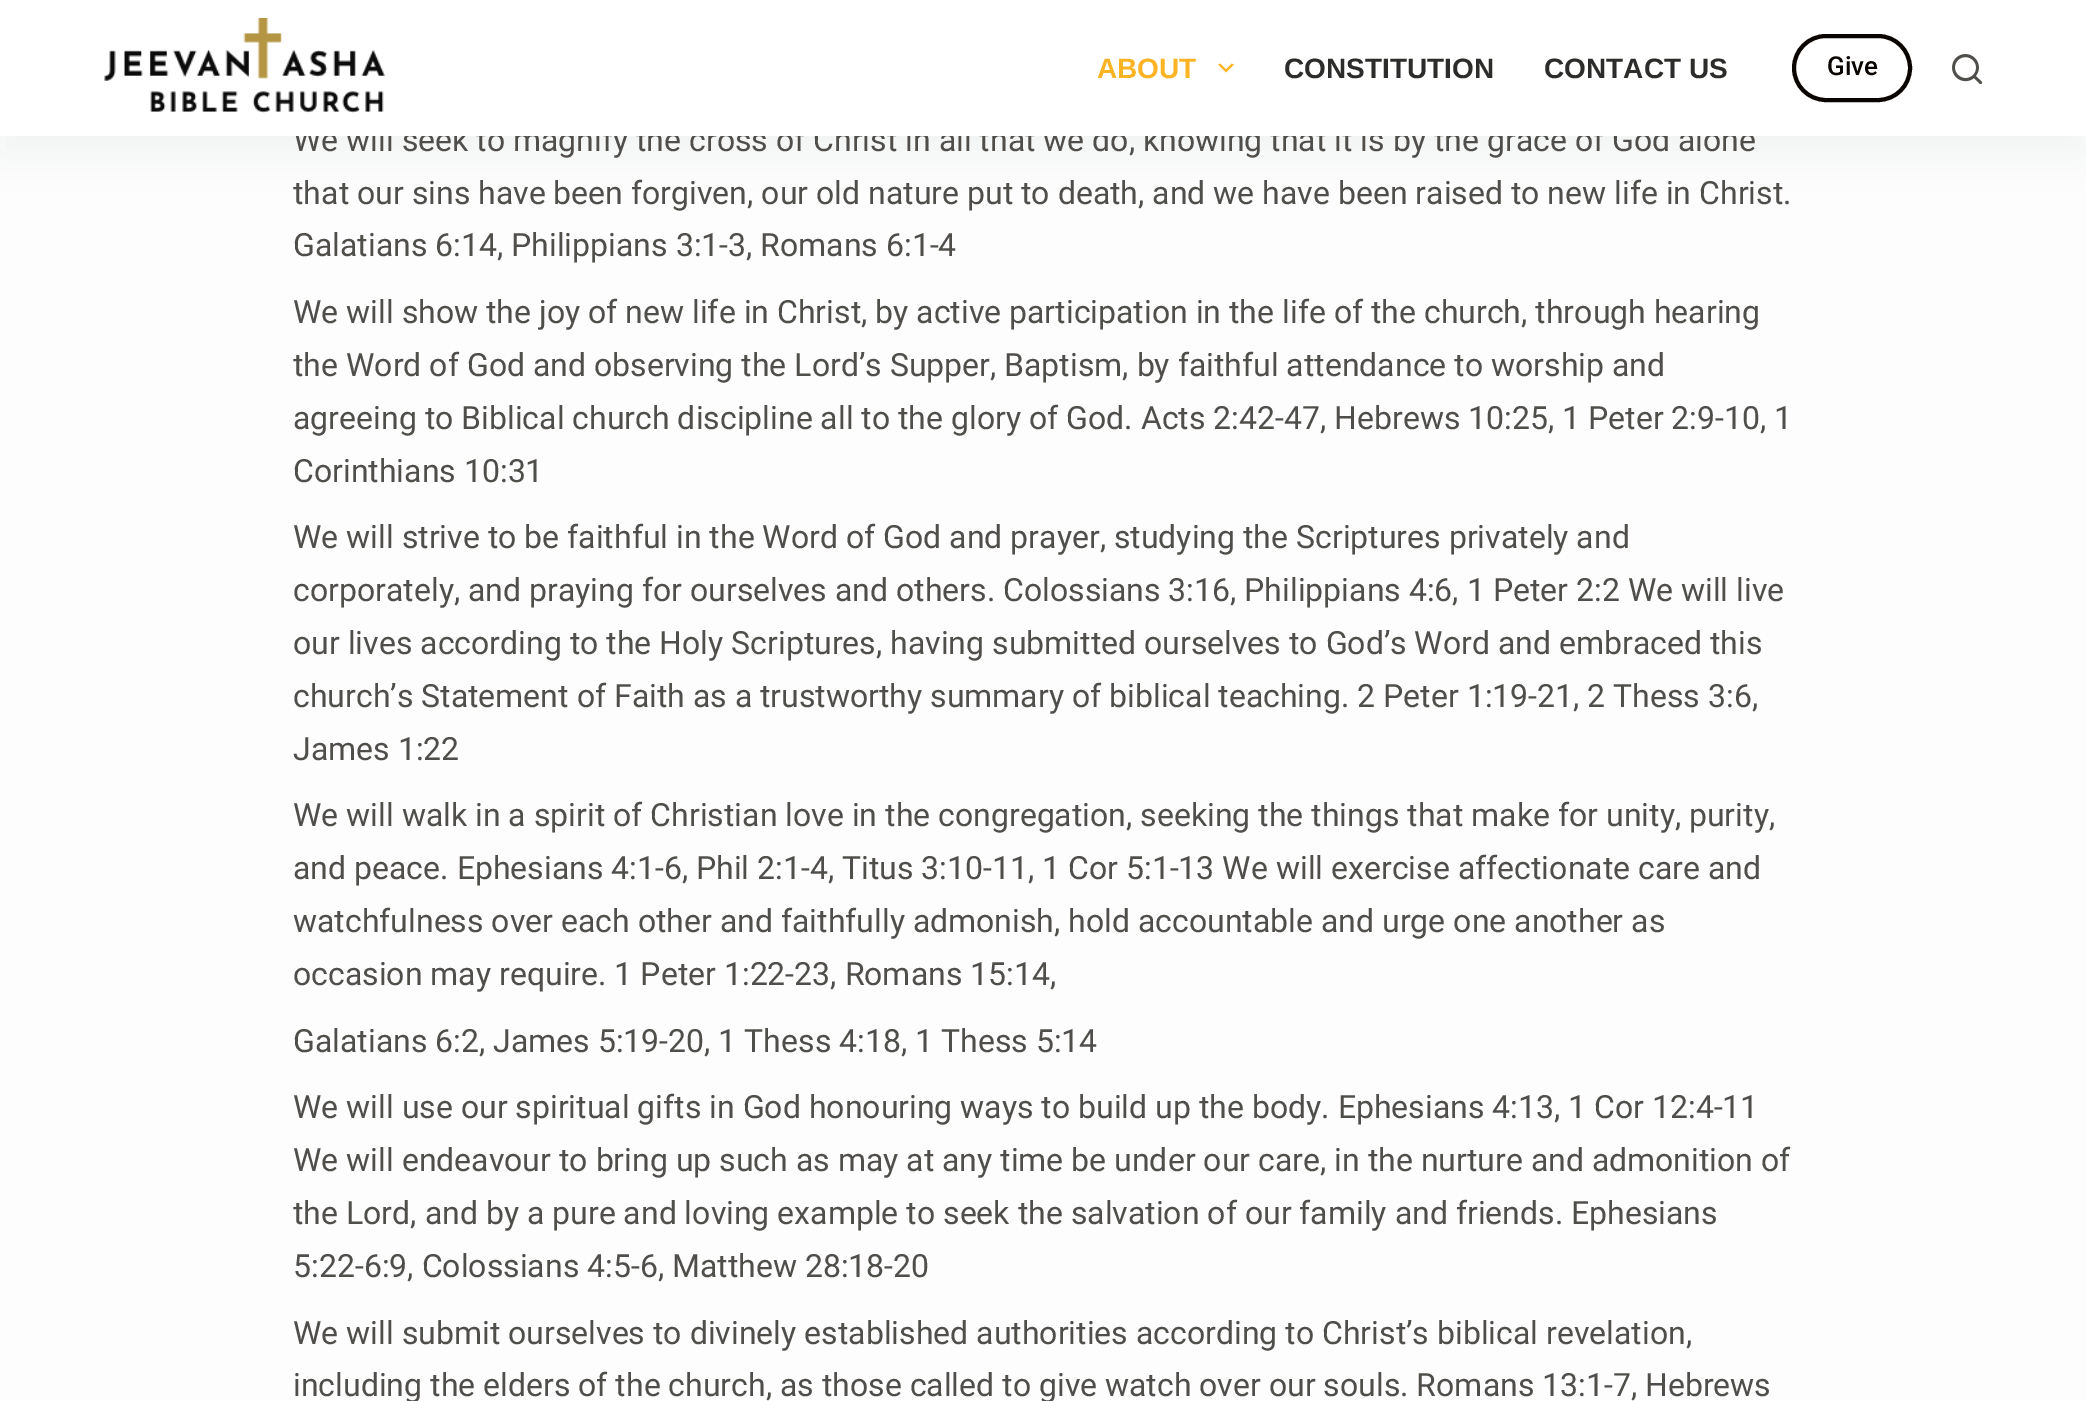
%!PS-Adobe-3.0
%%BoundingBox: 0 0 2086 1401
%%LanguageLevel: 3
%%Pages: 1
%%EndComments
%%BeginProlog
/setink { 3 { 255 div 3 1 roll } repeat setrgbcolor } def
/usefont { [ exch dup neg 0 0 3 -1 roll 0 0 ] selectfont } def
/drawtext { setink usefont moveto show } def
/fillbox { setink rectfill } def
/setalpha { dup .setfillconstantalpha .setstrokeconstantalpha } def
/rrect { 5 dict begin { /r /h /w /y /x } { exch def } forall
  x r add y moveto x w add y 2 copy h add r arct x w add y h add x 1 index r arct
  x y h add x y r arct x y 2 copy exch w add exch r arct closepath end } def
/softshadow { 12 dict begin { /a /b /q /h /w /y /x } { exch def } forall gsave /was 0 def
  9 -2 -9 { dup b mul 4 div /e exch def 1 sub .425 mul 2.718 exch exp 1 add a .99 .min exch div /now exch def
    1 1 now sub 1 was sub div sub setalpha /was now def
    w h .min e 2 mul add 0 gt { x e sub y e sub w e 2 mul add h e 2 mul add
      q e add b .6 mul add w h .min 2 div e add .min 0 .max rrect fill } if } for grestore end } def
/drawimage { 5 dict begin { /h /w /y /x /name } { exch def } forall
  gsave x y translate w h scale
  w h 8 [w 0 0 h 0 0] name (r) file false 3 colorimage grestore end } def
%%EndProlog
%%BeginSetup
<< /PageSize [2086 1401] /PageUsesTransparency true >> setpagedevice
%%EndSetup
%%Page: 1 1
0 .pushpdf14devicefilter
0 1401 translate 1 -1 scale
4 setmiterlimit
0 0 2086 1401 253 253 253 fillbox
44 62 80 setink
0 20 2086 136 0 20 0.05 softshadow
(We will seek to magnify the cross of Christ in all that we do, knowing that it is by the grace of God alone) 293 151 /Roboto-Regular 32 80 78 74 drawtext
0 0 2086 136 255 255 255 fillbox
(assets/img1.rgb) 104 18 281 95 drawimage
(ABOUT) 1097 78 /LiberationSans-Bold 28 252 180 36 drawtext
(assets/img2.rgb) 1218 63 16 10 drawimage
(CONSTITUTION) 1284 78 /LiberationSans-Bold 28 44 44 42 drawtext
(CONTACT US) 1544 78 /LiberationSans-Bold 28 44 44 42 drawtext
10 5 0 setink
4 setlinewidth
1794 36 116 64 32 rrect stroke
(Give) 1827 75 /Roboto-Medium 26 10 5 0 drawtext
(assets/img3.rgb) 1952 54 30 30 drawimage
(that our sins have been forgiven, our old nature put to death, and we have been raised to new life in Christ.) 293 204 /Roboto-Regular 32 80 78 74 drawtext
(Galatians 6:14, Philippians 3:1-3, Romans 6:1-4) 293 256 /Roboto-Regular 32 80 78 74 drawtext
(We will show the joy of new life in Christ, by active participation in the life of the church, through hearing) 293 323 /Roboto-Regular 32 80 78 74 drawtext
(the Word of God and observing the Lord’s Supper, Baptism, by faithful attendance to worship and) 293 376 /Roboto-Regular 32 80 78 74 drawtext
(agreeing to Biblical church discipline all to the glory of God. Acts 2:42-47, Hebrews 10:25, 1 Peter 2:9-10, 1) 293 429 /Roboto-Regular 32 80 78 74 drawtext
(Corinthians 10:31) 293 482 /Roboto-Regular 32 80 78 74 drawtext
(We will strive to be faithful in the Word of God and prayer, studying the Scriptures privately and) 293 548 /Roboto-Regular 32 80 78 74 drawtext
(corporately, and praying for ourselves and others. Colossians 3:16, Philippians 4:6, 1 Peter 2:2 We will live) 293 601 /Roboto-Regular 32 80 78 74 drawtext
(our lives according to the Holy Scriptures, having submitted ourselves to God’s Word and embraced this) 293 654 /Roboto-Regular 32 80 78 74 drawtext
(church’s Statement of Faith as a trustworthy summary of biblical teaching. 2 Peter 1:19-21, 2 Thess 3:6,) 293 707 /Roboto-Regular 32 80 78 74 drawtext
(James 1:22) 293 760 /Roboto-Regular 32 80 78 74 drawtext
(We will walk in a spirit of Christian love in the congregation, seeking the things that make for unity, purity,) 293 826 /Roboto-Regular 32 80 78 74 drawtext
(and peace. Ephesians 4:1-6, Phil 2:1-4, Titus 3:10-11, 1 Cor 5:1-13 We will exercise affectionate care and) 293 879 /Roboto-Regular 32 80 78 74 drawtext
(watchfulness over each other and faithfully admonish, hold accountable and urge one another as) 293 932 /Roboto-Regular 32 80 78 74 drawtext
(occasion may require. 1 Peter 1:22-23, Romans 15:14,) 293 985 /Roboto-Regular 32 80 78 74 drawtext
(Galatians 6:2, James 5:19-20, 1 Thess 4:18, 1 Thess 5:14) 293 1052 /Roboto-Regular 32 80 78 74 drawtext
(We will use our spiritual gifts in God honouring ways to build up the body. Ephesians 4:13, 1 Cor 12:4-11) 293 1118 /Roboto-Regular 32 80 78 74 drawtext
(We will endeavour to bring up such as may at any time be under our care, in the nurture and admonition of) 293 1171 /Roboto-Regular 32 80 78 74 drawtext
(the Lord, and by a pure and loving example to seek the salvation of our family and friends. Ephesians) 293 1224 /Roboto-Regular 32 80 78 74 drawtext
(5:22-6:9, Colossians 4:5-6, Matthew 28:18-20) 293 1277 /Roboto-Regular 32 80 78 74 drawtext
(We will submit ourselves to divinely established authorities according to Christ’s biblical revelation,) 293 1344 /Roboto-Regular 32 80 78 74 drawtext
(including the elders of the church, as those called to give watch over our souls. Romans 13:1-7, Hebrews) 293 1396 /Roboto-Regular 32 80 78 74 drawtext
.poppdf14devicefilter showpage
%%EOF
